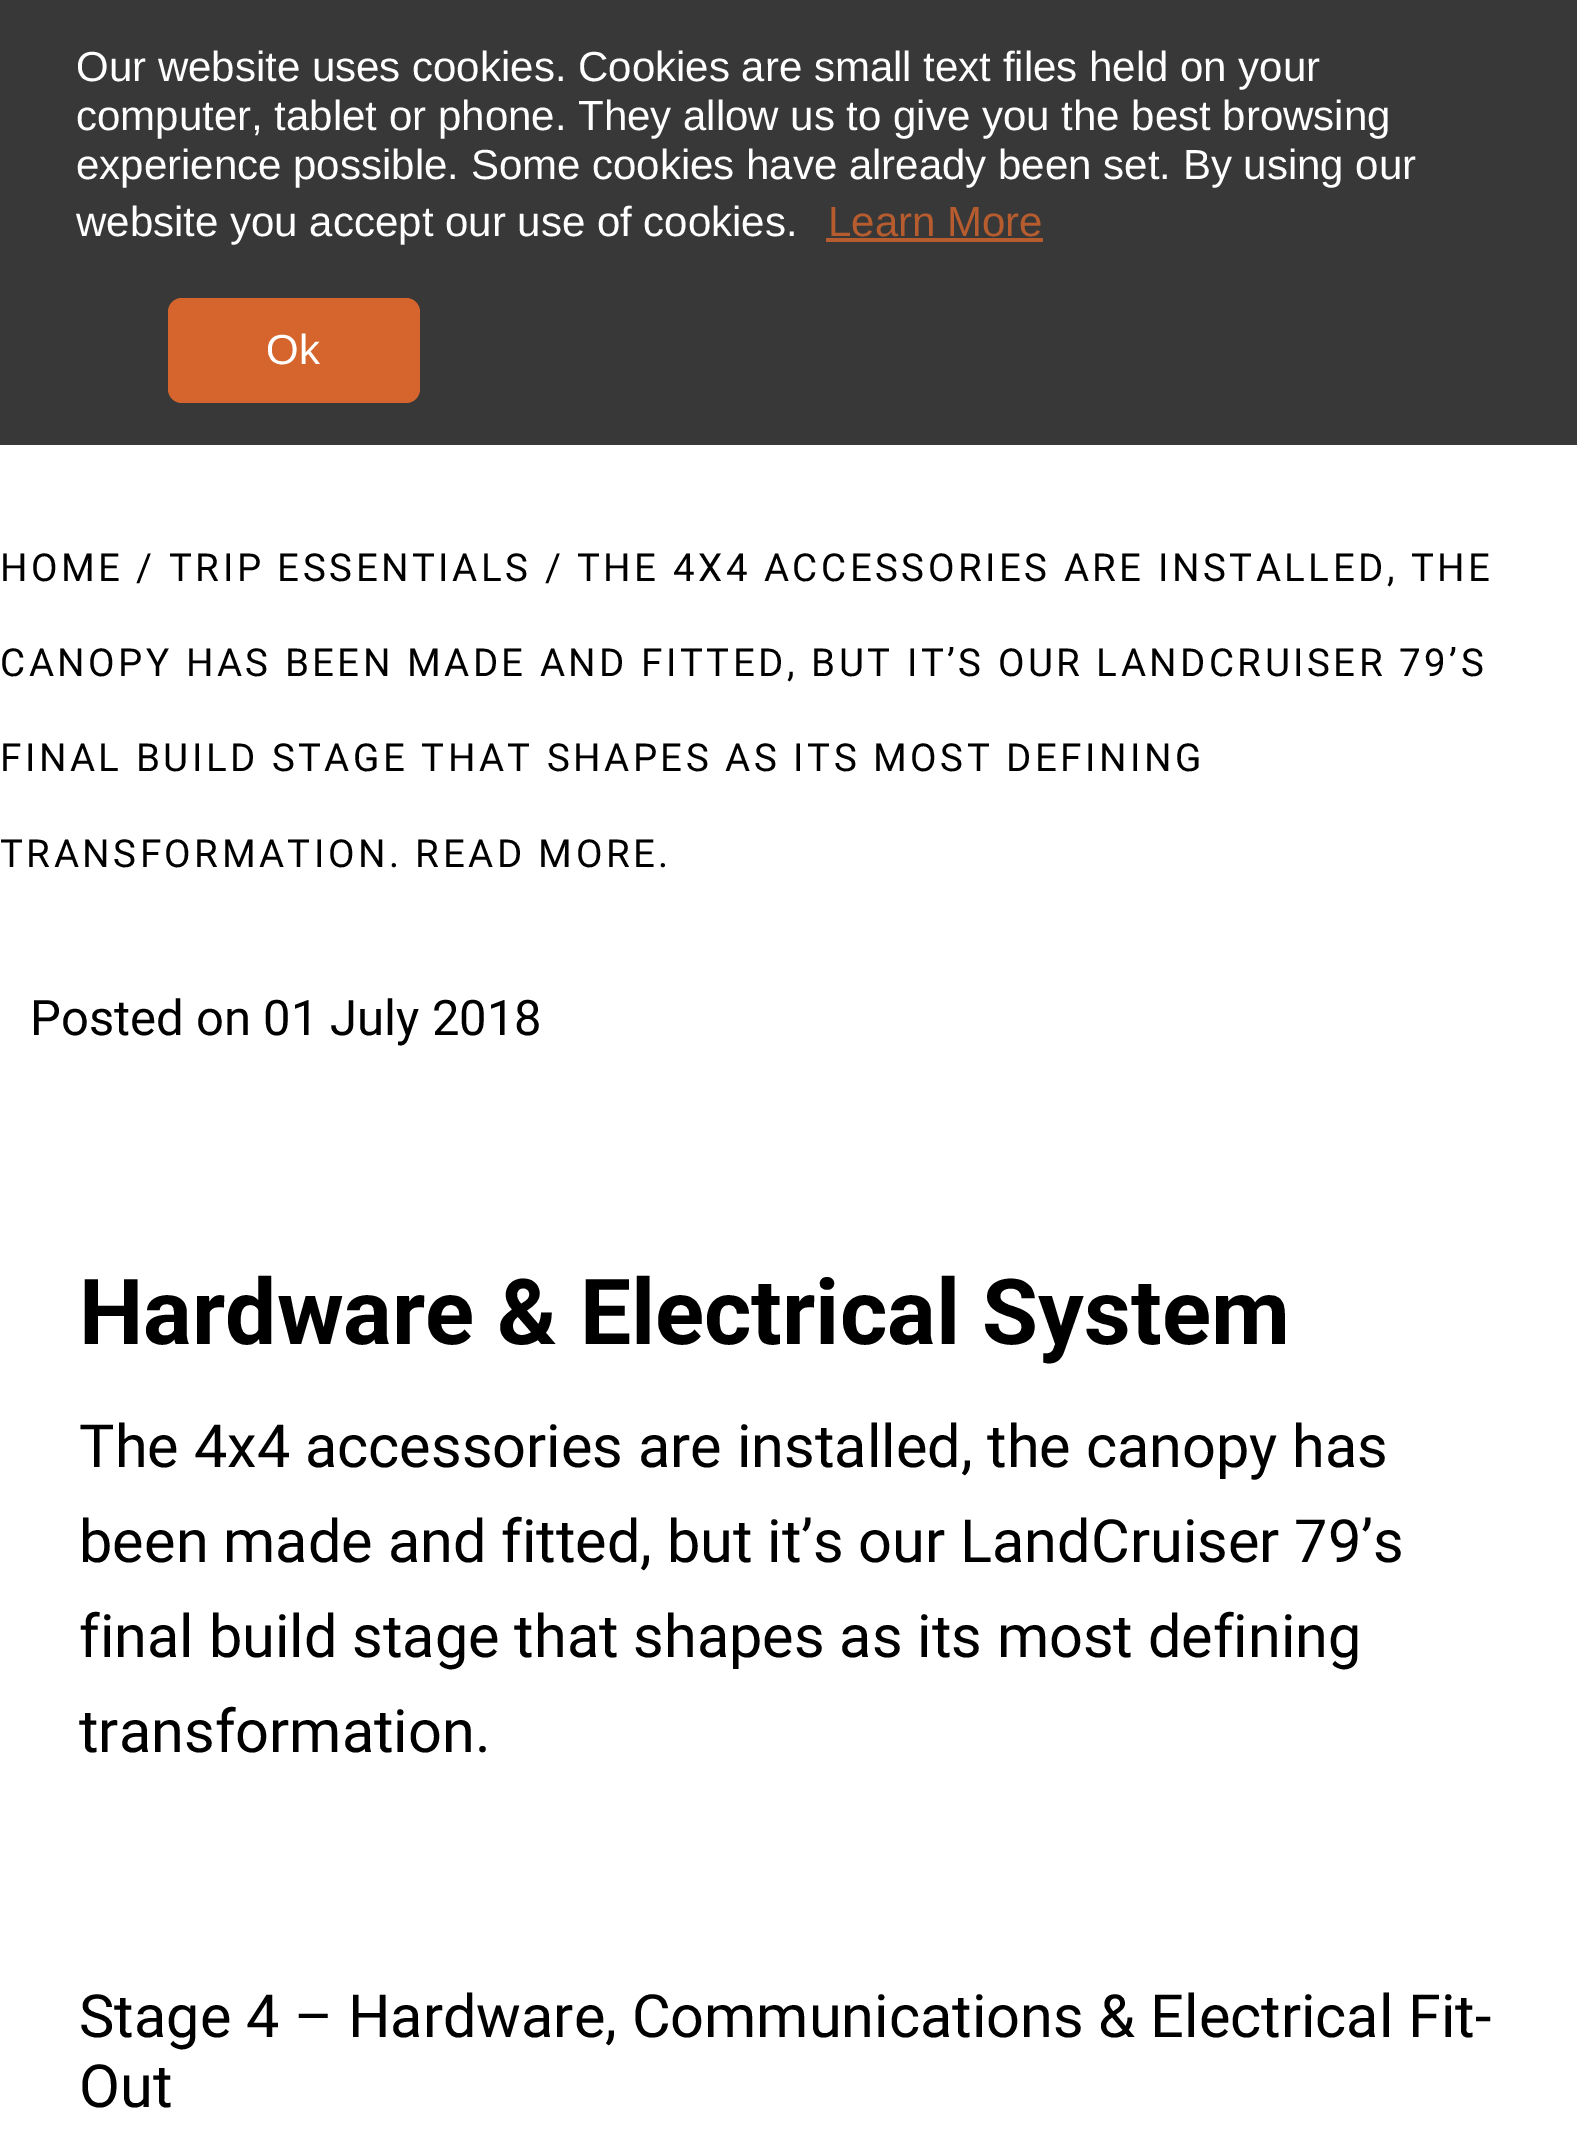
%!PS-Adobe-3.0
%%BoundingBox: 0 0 1577 2141
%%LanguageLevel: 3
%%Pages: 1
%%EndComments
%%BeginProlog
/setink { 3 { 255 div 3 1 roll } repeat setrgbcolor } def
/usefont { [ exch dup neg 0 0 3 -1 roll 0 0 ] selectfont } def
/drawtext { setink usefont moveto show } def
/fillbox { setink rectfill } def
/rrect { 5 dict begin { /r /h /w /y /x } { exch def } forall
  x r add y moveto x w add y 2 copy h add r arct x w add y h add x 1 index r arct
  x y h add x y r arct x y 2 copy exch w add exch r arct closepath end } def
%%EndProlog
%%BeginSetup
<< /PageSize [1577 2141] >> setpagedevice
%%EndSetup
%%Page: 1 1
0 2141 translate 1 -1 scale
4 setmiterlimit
0 0 1577 2141 255 255 255 fillbox
0 0 1577 445 56 56 56 fillbox
(Our website uses cookies. Cookies are small text files held on your) 76 81 /LiberationSans-Regular 42 255 255 255 drawtext
(computer, tablet or phone. They allow us to give you the best browsing) 76 130 /LiberationSans-Regular 42 255 255 255 drawtext
(experience possible. Some cookies have already been set. By using our) 76 179 /LiberationSans-Regular 42 255 255 255 drawtext
(website you accept our use of cookies.) 76 236 /LiberationSans-Regular 42 255 255 255 drawtext
(Learn More) 828 236 /LiberationSans-Regular 42 182 92 47 drawtext
826 238 217 4 182 92 47 fillbox
214 101 45 setink
168 298 252 105 14 rrect fill
(Ok) 266 364 /LiberationSans-Regular 42 255 255 255 drawtext
/Roboto-Regular 38.5 usefont
0 0 0 setink
0 581 moveto 3.5 0 (HOME / TRIP ESSENTIALS / THE 4X4 ACCESSORIES ARE INSTALLED, THE) ashow
0 676 moveto 3.5 0 (CANOPY HAS BEEN MADE AND FITTED, BUT IT’S OUR LANDCRUISER 79’S) ashow
0 771 moveto 3.5 0 (FINAL BUILD STAGE THAT SHAPES AS ITS MOST DEFINING) ashow
0 867 moveto 3.5 0 (TRANSFORMATION. READ MORE.) ashow
(Posted on 01 July 2018) 30 1035 /Roboto-Regular 49 0 0 0 drawtext
(Hardware & Electrical System) 79 1344 /Roboto-Bold 91 0 0 0 drawtext
(The 4x4 accessories are installed, the canopy has) 79 1467 /Roboto-Regular 59.5 0 0 0 drawtext
(been made and fitted, but it’s our LandCruiser 79’s) 79 1562 /Roboto-Regular 59.5 0 0 0 drawtext
(final build stage that shapes as its most defining) 79 1657 /Roboto-Regular 59.5 0 0 0 drawtext
(transformation.) 79 1752 /Roboto-Regular 59.5 0 0 0 drawtext
(Stage 4 – Hardware, Communications & Electrical Fit-) 79 2037 /Roboto-Regular 59.5 0 0 0 drawtext
(Out) 79 2107 /Roboto-Regular 59.5 0 0 0 drawtext
showpage
%%EOF
